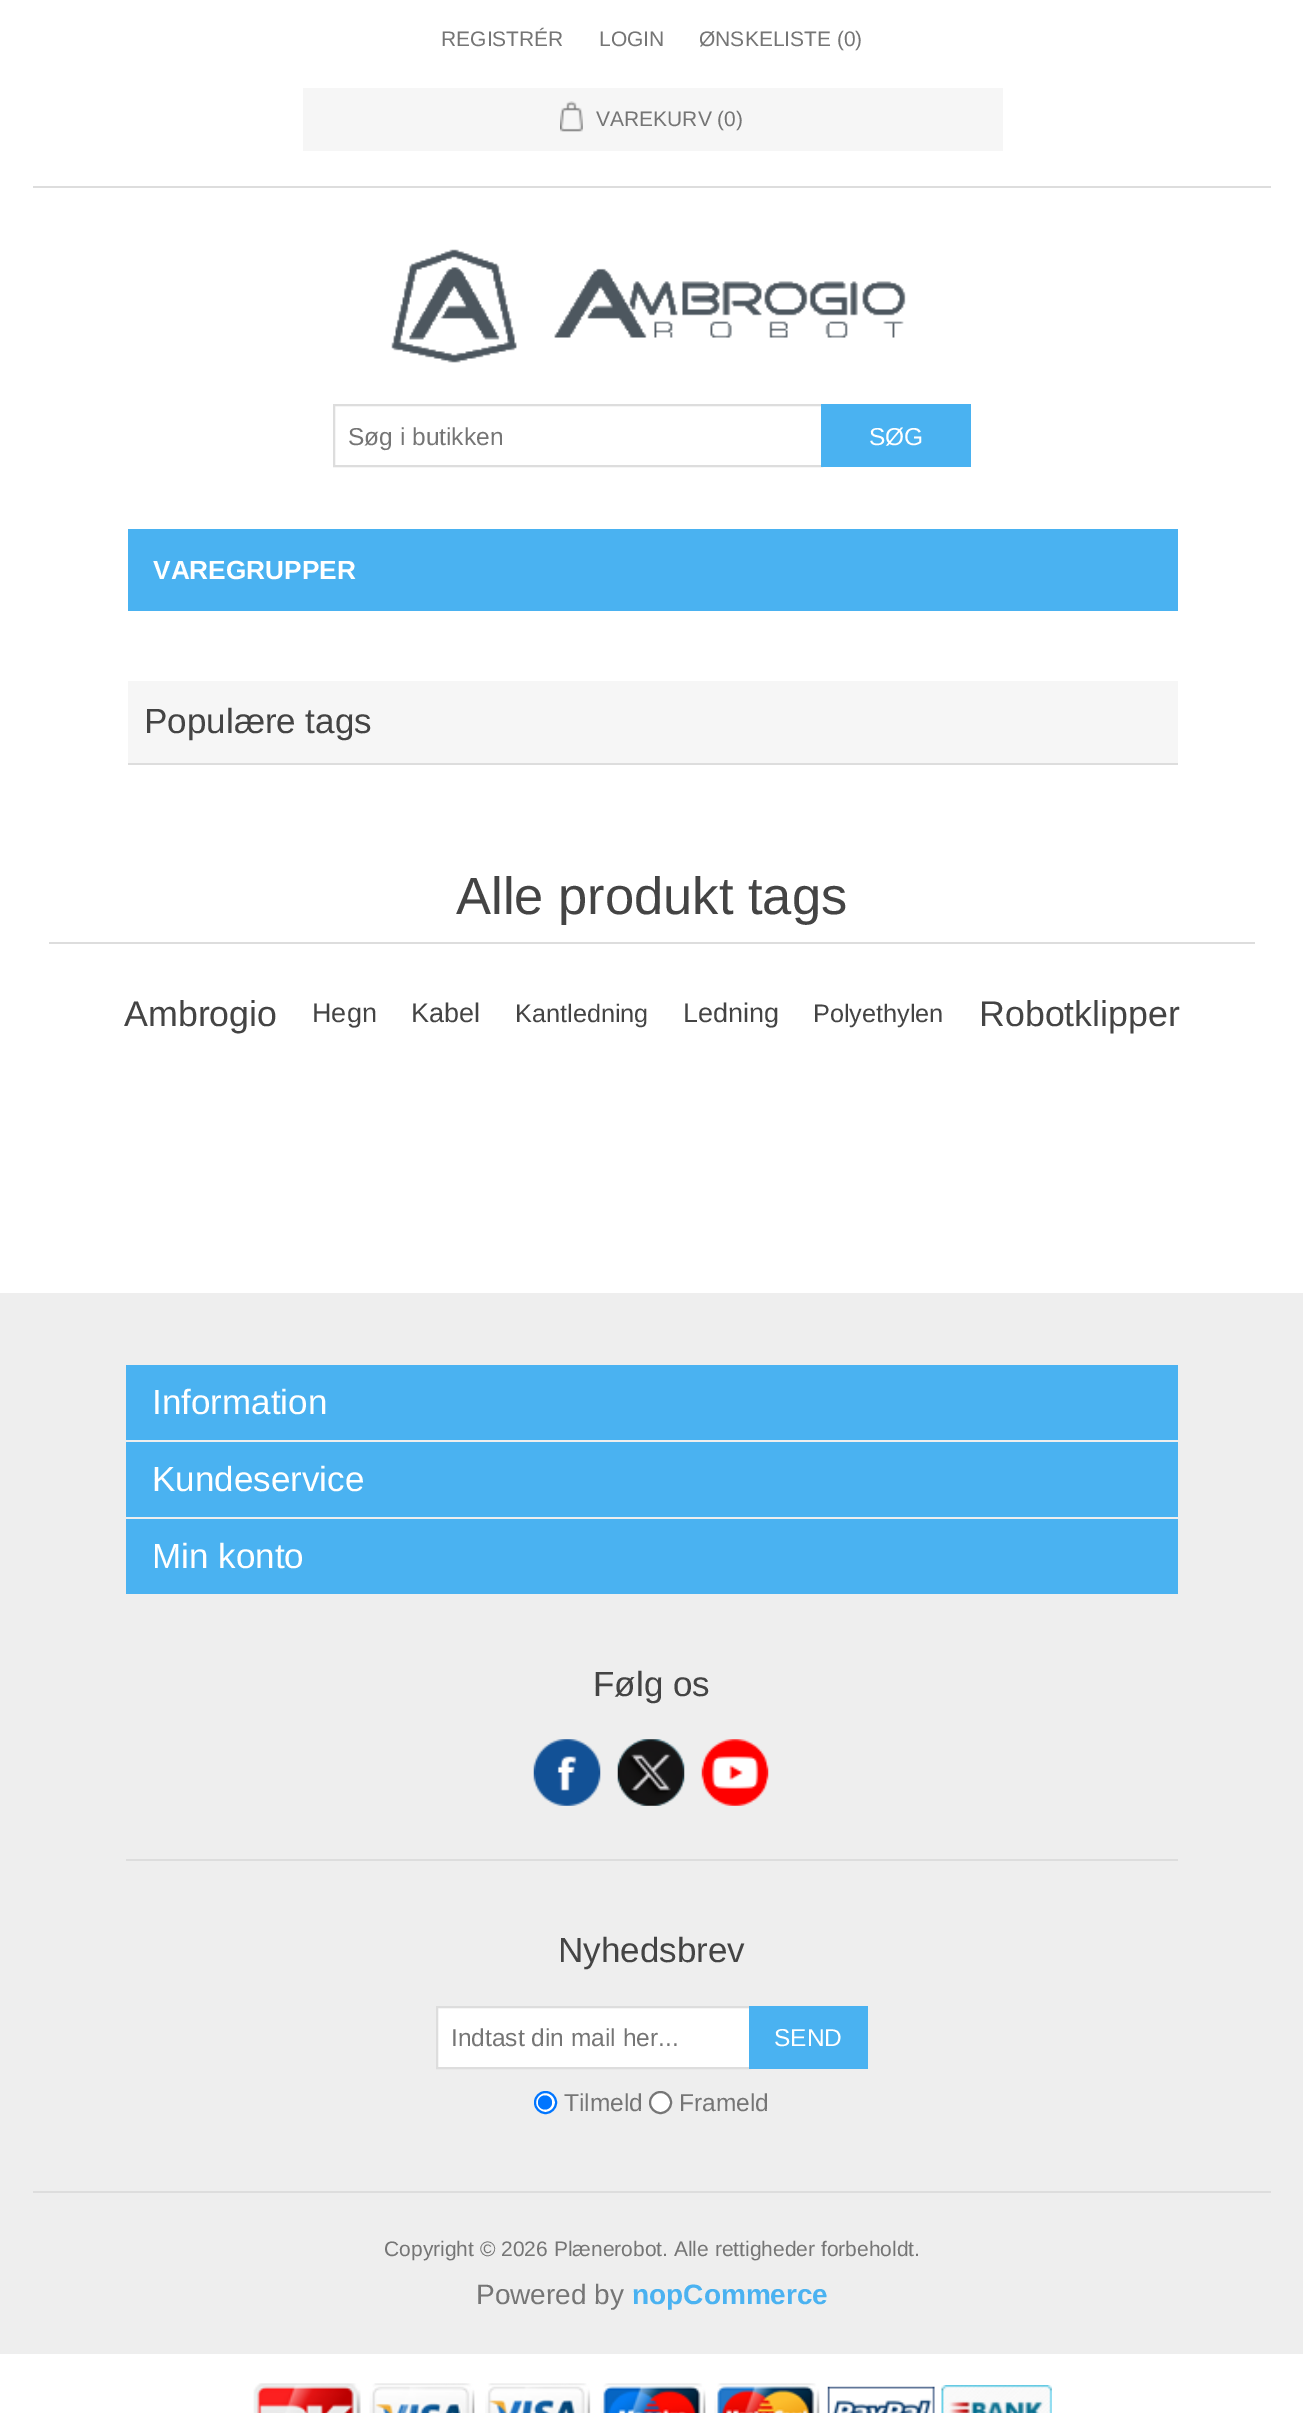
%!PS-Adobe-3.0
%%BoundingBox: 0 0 1303 2413
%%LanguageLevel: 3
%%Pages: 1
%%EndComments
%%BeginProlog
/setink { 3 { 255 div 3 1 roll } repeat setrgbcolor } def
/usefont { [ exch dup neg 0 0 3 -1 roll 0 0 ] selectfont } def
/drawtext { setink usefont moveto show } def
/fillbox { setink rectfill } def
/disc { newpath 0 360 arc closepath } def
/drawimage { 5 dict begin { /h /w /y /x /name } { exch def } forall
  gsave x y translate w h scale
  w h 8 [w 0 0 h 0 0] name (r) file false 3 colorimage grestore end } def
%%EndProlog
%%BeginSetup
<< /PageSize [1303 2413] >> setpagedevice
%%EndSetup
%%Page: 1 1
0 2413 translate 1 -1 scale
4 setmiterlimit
0 0 1303 2413 255 255 255 fillbox
33 186 1238 2 221 221 221 fillbox
(REGISTRÉR) 441 46 /LiberationSans-Regular 21 117 117 117 drawtext
(LOGIN) 599 46 /LiberationSans-Regular 21 117 117 117 drawtext
(ØNSKELISTE \(0\)) 699 46 /LiberationSans-Regular 21 117 117 117 drawtext
303 88 700 63 246 246 246 fillbox
(assets/img1.rgb) 560 101 23 31 drawimage
(VAREKURV \(0\)) 596 126 /LiberationSans-Regular 21 117 117 117 drawtext
(assets/img2.rgb) 391 249 515 114 drawimage
221 221 221 setink
2 setlinewidth
334 405 488 61 rectstroke
(Søg i butikken) 348 445 /LiberationSans-Regular 24.5 117 117 117 drawtext
821 404 150 63 74 178 241 fillbox
(SØG) 869 445 /LiberationSans-Regular 24.5 255 255 255 drawtext
128 529 1050 82 74 178 241 fillbox
(VAREGRUPPER) 153 579 /LiberationSans-Bold 26.25 255 255 255 drawtext
128 681 1050 82 246 246 246 fillbox
128 763 1050 2 221 221 221 fillbox
(Populære tags) 144 733 /LiberationSans-Regular 35 68 68 68 drawtext
49 942 1206 2 221 221 221 fillbox
(Alle produkt tags) 456 914 /LiberationSans-Regular 52.5 68 68 68 drawtext
(Ambrogio) 124 1026 /LiberationSans-Regular 35.75 68 68 68 drawtext
(Hegn) 312 1022 /LiberationSans-Regular 27 68 68 68 drawtext
(Kabel) 411 1022 /LiberationSans-Regular 27 68 68 68 drawtext
(Kantledning) 515 1022 /LiberationSans-Regular 25.25 68 68 68 drawtext
(Ledning) 683 1022 /LiberationSans-Regular 27 68 68 68 drawtext
(Polyethylen) 813 1022 /LiberationSans-Regular 25.25 68 68 68 drawtext
(Robotklipper) 979 1026 /LiberationSans-Regular 35.75 68 68 68 drawtext
0 1293 1303 1061 238 238 238 fillbox
33 2191 1238 2 221 221 221 fillbox
126 1365 1052 75 74 178 241 fillbox
(Information) 152 1414 /LiberationSans-Regular 35 255 255 255 drawtext
126 1442 1052 75 74 178 241 fillbox
(Kundeservice) 152 1491 /LiberationSans-Regular 35 255 255 255 drawtext
126 1519 1052 75 74 178 241 fillbox
(Min konto) 152 1568 /LiberationSans-Regular 35 255 255 255 drawtext
(Følg os) 593 1696 /LiberationSans-Regular 35 68 68 68 drawtext
126 1859 1052 2 221 221 221 fillbox
(assets/img3.rgb) 533 1739 68 67 drawimage
(assets/img4.rgb) 617 1739 68 67 drawimage
(assets/img5.rgb) 701 1739 68 67 drawimage
(Nyhedsbrev) 558 1962 /LiberationSans-Regular 35 68 68 68 drawtext
255 255 255 setink
437 2007 moveto 750 2007 lineto 750 2068 lineto 437 2068 lineto closepath gsave fill grestore
221 221 221 setink
stroke
(Indtast din mail her...) 451 2046 /LiberationSans-Regular 24.5 117 117 117 drawtext
749 2006 119 63 74 178 241 fillbox
(SEND) 774 2046 /LiberationSans-Regular 24.5 255 255 255 drawtext
545.5 2102.5 10.5 disc gsave fill grestore
0 117 255 setink
stroke
545 2102.5 7 disc fill
(Tilmeld) 564 2111 /LiberationSans-Regular 24.5 117 117 117 drawtext
255 255 255 setink
660.5 2102.5 10.5 disc gsave fill grestore
118 118 118 setink
stroke
(Frameld) 679 2111 /LiberationSans-Regular 24.5 117 117 117 drawtext
(Copyright © 2026 Plænerobot. Alle rettigheder forbeholdt.) 384 2256 /LiberationSans-Regular 21 117 117 117 drawtext
(Powered by) 476 2304 /LiberationSans-Regular 28 117 117 117 drawtext
(nopCommerce) 632 2304 /LiberationSans-Bold 28 74 178 241 drawtext
(assets/img6.rgb) 253 2383 108 30 drawimage
(assets/img7.rgb) 369 2383 106 30 drawimage
(assets/img8.rgb) 485 2383 106 30 drawimage
(assets/img9.rgb) 600 2383 106 30 drawimage
(assets/img10.rgb) 714 2383 106 30 drawimage
(assets/img11.rgb) 827 2386 108 27 drawimage
(assets/img12.rgb) 941 2385 111 28 drawimage
showpage
%%EOF
